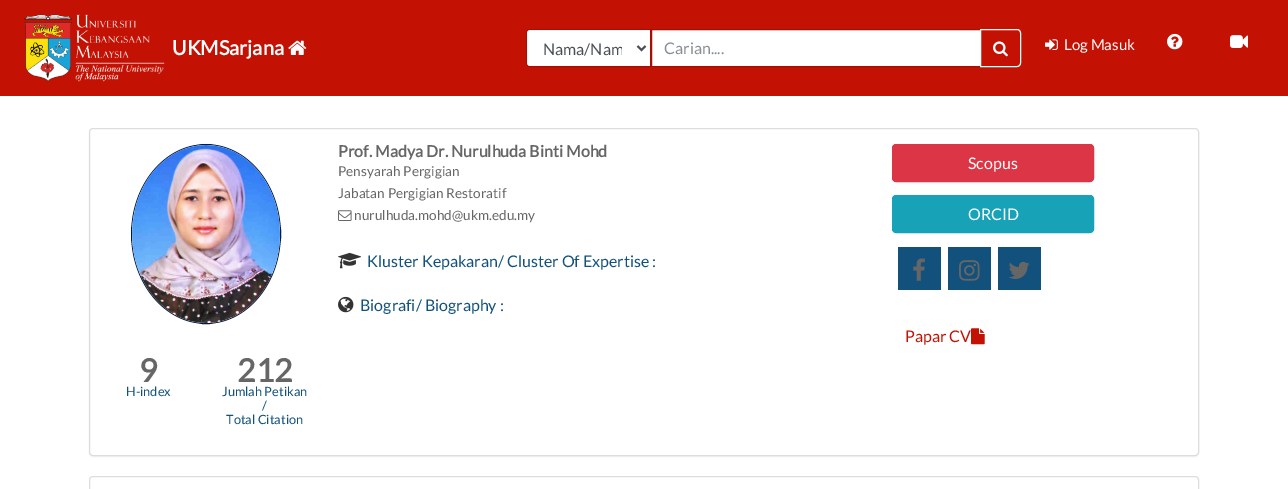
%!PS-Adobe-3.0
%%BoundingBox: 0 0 1288 489
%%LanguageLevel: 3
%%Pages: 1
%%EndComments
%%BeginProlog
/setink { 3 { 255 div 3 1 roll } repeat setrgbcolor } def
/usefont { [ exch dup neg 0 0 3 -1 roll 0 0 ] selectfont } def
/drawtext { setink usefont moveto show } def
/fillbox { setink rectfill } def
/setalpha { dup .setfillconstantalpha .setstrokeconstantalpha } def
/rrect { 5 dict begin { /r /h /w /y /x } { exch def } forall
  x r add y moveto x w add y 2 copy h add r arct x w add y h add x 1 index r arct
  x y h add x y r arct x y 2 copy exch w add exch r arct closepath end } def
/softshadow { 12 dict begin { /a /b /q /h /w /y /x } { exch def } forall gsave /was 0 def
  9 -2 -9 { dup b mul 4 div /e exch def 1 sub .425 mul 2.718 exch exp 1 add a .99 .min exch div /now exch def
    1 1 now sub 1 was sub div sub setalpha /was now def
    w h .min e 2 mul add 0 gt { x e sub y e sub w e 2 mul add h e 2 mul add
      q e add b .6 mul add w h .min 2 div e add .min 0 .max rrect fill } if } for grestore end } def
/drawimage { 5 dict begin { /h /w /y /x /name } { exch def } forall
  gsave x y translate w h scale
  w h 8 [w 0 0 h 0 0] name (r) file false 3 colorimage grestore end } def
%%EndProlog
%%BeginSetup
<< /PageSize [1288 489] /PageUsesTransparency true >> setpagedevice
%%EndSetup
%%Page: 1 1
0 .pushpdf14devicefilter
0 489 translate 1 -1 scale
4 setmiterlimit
0 0 1288 489 255 255 255 fillbox
0 0 1288 96 195 17 4 fillbox
(assets/img1.rgb) 24 14 141 68 drawimage
(UKMSarjana) 172 55 /Lato-Bold 20 255 255 255 drawtext
(assets/img2.rgb) 288 40 19 15 drawimage
530 30 moveto 650 30 lineto 650 66 lineto 530 66 lineto 528.5 66 527 64.5 527 63 curveto 527 33 lineto 527 31.5 528.5 30 530 30 curveto closepath fill
0.15 setalpha
0 0 0 setink
530 29.5 moveto 650.5 29.5 lineto 650.5 66.5 lineto 530 66.5 lineto 528 66.5 526.5 65 526.5 63 curveto 526.5 33 lineto 526.5 31 528 29.5 530 29.5 curveto closepath stroke
1 setalpha
73 80 87 setink
2 setlinewidth
637.5 46 moveto 641.5 50 lineto 645.5 46 lineto stroke
gsave
543 38 79 21 rectclip
(Nama/Nam) 543 55 /Lato-Regular 16 73 80 87 drawtext
grestore
255 255 255 setink
651.5 29.5 moveto 980.5 29.5 lineto 980.5 66.5 lineto 651.5 66.5 lineto closepath gsave fill grestore
166 14 3 setink
1 setlinewidth
stroke
(Carian....) 664 54 /Lato-Regular 16 134 142 150 drawtext
195 17 4 setink
980.5 29.5 moveto 1017 29.5 lineto 1019 29.5 1020.5 31 1020.5 33 curveto 1020.5 63 lineto 1020.5 65 1019 66.5 1017 66.5 curveto 980.5 66.5 lineto closepath gsave fill grestore
255 255 255 setink
stroke
(assets/img3.rgb) 993 41 15 16 drawimage
(assets/img4.rgb) 1045 39 13 11 drawimage
(Log Masuk) 1064 50 /Lato-Regular 15 255 255 255 drawtext
(assets/img5.rgb) 1167 33 16 17 drawimage
(assets/img6.rgb) 1230 35 18 13 drawimage
0 0 0 setink
89 129 1110 328 4 0.5 0.05 softshadow
255 255 255 setink
89.5 128.5 1109 327 3.5 rrect gsave fill grestore
221 221 221 setink
stroke
(Prof. Madya Dr. Nurulhuda Binti Mohd) 338 157 /Lato-Bold 16 102 102 102 drawtext
(Pensyarah Pergigian) 338 176 /Lato-Regular 13.6 102 102 102 drawtext
(Jabatan Pergigian Restoratif) 338 198 /Lato-Regular 13.6 102 102 102 drawtext
(assets/img7.rgb) 338 210 14 11 drawimage
(nurulhuda.mohd@ukm.edu.my) 354 220 /Lato-Regular 13.6 102 102 102 drawtext
(assets/img8.rgb) 338 252 24 17 drawimage
(Kluster Kepakaran/ Cluster Of Expertise :) 367 267 /Lato-Regular 16 17 81 124 drawtext
(assets/img9.rgb) 338 296 16 17 drawimage
(Biografi/ Biography :) 360 311 /Lato-Regular 16 17 81 124 drawtext
220 53 69 setink
892.5 144.5 201 37 3.5 rrect gsave fill grestore
stroke
(Scopus) 968 169 /Lato-Regular 16 255 255 255 drawtext
23 162 184 setink
892.5 195.5 201 37 3.5 rrect gsave fill grestore
stroke
(ORCID) 968 220 /Lato-Regular 16 255 255 255 drawtext
898 247 43 43 17 81 124 fillbox
(assets/img10.rgb) 913 258 12 23 drawimage
948 247 43 43 17 81 124 fillbox
(assets/img11.rgb) 959 260 21 21 drawimage
998 247 43 43 17 81 124 fillbox
(assets/img12.rgb) 1009 261 21 18 drawimage
(Papar CV) 905 342 /Lato-Regular 16 195 17 4 drawtext
(assets/img13.rgb) 971 328 14 17 drawimage
2 26 64 setink
206 144.5 moveto 247 144.5 280.5 184.5 280.5 234 curveto 280.5 283.5 247 323.5 206 323.5 curveto 165 323.5 131.5 283.5 131.5 234 curveto 131.5 184.5 165 144.5 206 144.5 curveto closepath stroke
(assets/img14.rgb) 132 145 148 178 drawimage
(9) 139 382 /Lato-Bold 32 102 102 102 drawtext
(H-index) 126 396 /Lato-Regular 12.75 17 81 124 drawtext
(212) 237 382 /Lato-Bold 32 102 102 102 drawtext
(Jumlah Petikan) 222 396 /Lato-Regular 12.75 17 81 124 drawtext
(/) 262 410 /Lato-Regular 12.75 17 81 124 drawtext
(Total Citation) 226 424 /Lato-Regular 12.75 17 81 124 drawtext
221 221 221 setink
89.5 476.5 1109 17 3.5 rrect stroke
.poppdf14devicefilter showpage
%%EOF
